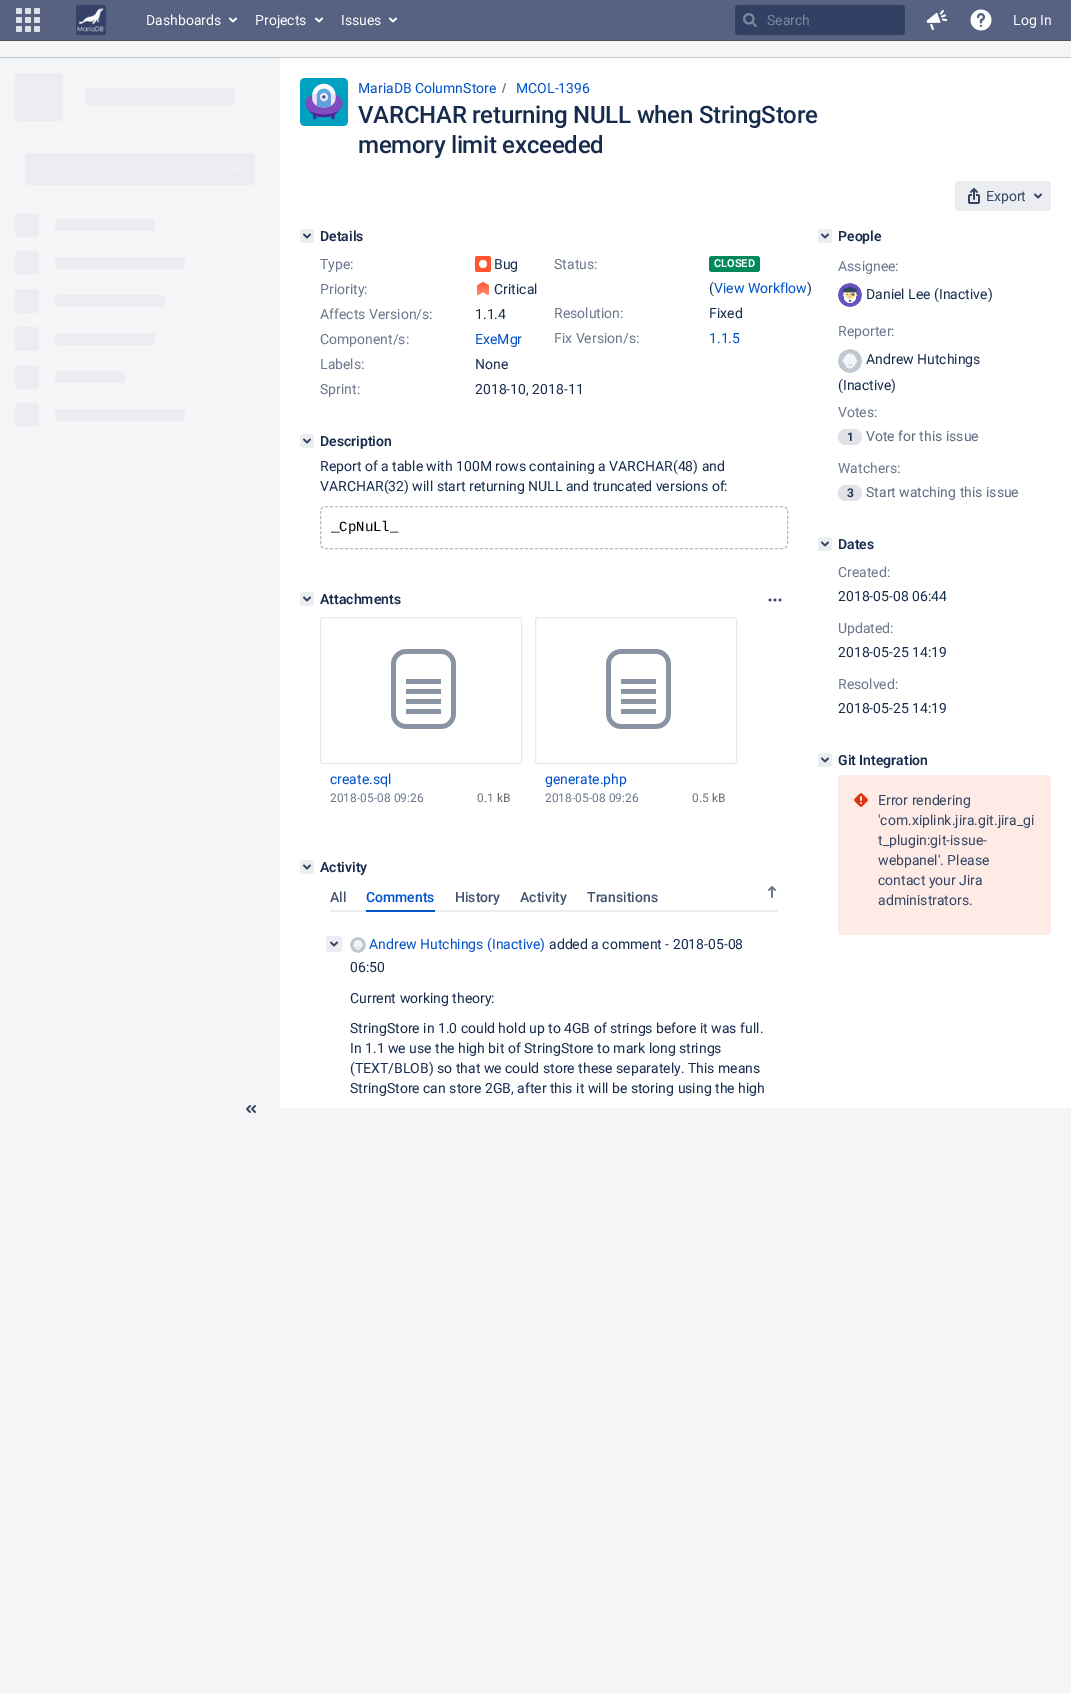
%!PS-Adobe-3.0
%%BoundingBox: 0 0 1071 1693
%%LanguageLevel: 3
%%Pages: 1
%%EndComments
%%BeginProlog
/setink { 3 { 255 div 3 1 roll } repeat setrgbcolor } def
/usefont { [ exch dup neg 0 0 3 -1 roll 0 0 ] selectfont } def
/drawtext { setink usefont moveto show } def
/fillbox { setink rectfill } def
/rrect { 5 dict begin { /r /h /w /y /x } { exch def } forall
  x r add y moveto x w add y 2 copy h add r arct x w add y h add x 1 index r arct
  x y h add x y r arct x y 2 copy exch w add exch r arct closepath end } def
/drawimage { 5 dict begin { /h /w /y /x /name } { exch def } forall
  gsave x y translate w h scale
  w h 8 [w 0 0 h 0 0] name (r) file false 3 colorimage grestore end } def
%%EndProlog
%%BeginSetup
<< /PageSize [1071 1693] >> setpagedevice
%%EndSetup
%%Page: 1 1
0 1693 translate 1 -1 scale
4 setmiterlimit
0 0 1071 1693 244 245 247 fillbox
0 0 1071 40 87 97 129 fillbox
0 40 1071 1 82 82 84 fillbox
(assets/img1.rgb) 16 8 24 24 drawimage
(assets/img2.rgb) 76 5 30 30 drawimage
(Dashboards) 146 25 /Roboto-Regular 14 255 255 255 drawtext
(assets/img3.rgb) 229 17 8 6 drawimage
(Projects) 255 25 /Roboto-Regular 14 255 255 255 drawtext
(assets/img3.rgb) 315 17 8 6 drawimage
(Issues) 341 25 /Roboto-Regular 14 255 255 255 drawtext
(assets/img3.rgb) 389 17 8 6 drawimage
50 65 99 setink
735 5 170 30 3 rrect fill
(assets/img4.rgb) 743 13 14 14 drawimage
(Search) 767 25 /Roboto-Regular 14 122 134 154 drawtext
(assets/img5.rgb) 926 10 22 20 drawimage
(assets/img6.rgb) 970 9 22 22 drawimage
(Log In) 1013 25 /Roboto-Regular 14 255 255 255 drawtext
0 57 1071 1 193 199 208 fillbox
(assets/img7.rgb) 15 73 240 354 drawimage
(assets/img8.rgb) 246 1105 10 8 drawimage
280 58 791 1050 255 255 255 fillbox
(assets/img9.rgb) 300 78 48 48 drawimage
(MariaDB ColumnStore) 358 93 /Roboto-Regular 14 0 82 204 drawtext
112 112 112 setink
503 93 moveto 506 83 lineto 505 83 lineto 502 93 lineto closepath fill
(MCOL-1396) 516 93 /Roboto-Regular 14 0 82 204 drawtext
/Roboto-Medium 24 usefont
23 43 77 setink
358 123 moveto -0.25 0 (VARCHAR returning NULL when StringStore) ashow
358 153 moveto -0.25 0 (memory limit exceeded) ashow
235 237 240 setink
955 181 96 30 3 rrect fill
(assets/img10.rgb) 968 188 12 16 drawimage
(Export) 986 201 /Roboto-Regular 14 52 69 99 drawtext
(assets/img11.rgb) 1034 193 8 6 drawimage
235 237 240 setink
300 229 14 14 3 rrect fill
(assets/img12.rgb) 303 233 8 6 drawimage
(Details) 320 241 /Roboto-SemiBold 14 23 43 77 drawtext
(Type:) 320 269 /Roboto-Regular 14 107 119 140 drawtext
(assets/img13.rgb) 475 256 16 16 drawimage
(Bug) 494 269 /Roboto-Regular 14 23 43 77 drawtext
(Status:) 554 269 /Roboto-Regular 14 107 119 140 drawtext
0 135 90 setink
709 256 51 16 3 rrect fill
(CLOSED) 714 267 /Roboto-Bold 11 255 255 255 drawtext
(\() 709 293 /Roboto-Regular 14 23 43 77 drawtext
(View Workflow) 714 293 /Roboto-Regular 14 0 82 204 drawtext
(\)) 807 293 /Roboto-Regular 14 23 43 77 drawtext
(Priority:) 320 294 /Roboto-Regular 14 107 119 140 drawtext
(assets/img14.rgb) 477 282 12 14 drawimage
(Critical) 494 294 /Roboto-Regular 14 23 43 77 drawtext
(Affects Version/s:) 320 319 /Roboto-Regular 14 107 119 140 drawtext
(1.1.4) 475 319 /Roboto-Regular 14 23 43 77 drawtext
(Resolution:) 554 318 /Roboto-Regular 14 107 119 140 drawtext
(Fixed) 709 318 /Roboto-Regular 14 23 43 77 drawtext
(Component/s:) 320 344 /Roboto-Regular 14 107 119 140 drawtext
(ExeMgr) 475 344 /Roboto-Regular 14 0 82 204 drawtext
(Fix Version/s:) 554 343 /Roboto-Regular 14 107 119 140 drawtext
(1.1.5) 709 343 /Roboto-Regular 14 0 82 204 drawtext
(Labels:) 320 369 /Roboto-Regular 14 107 119 140 drawtext
(None) 475 369 /Roboto-Regular 14 23 43 77 drawtext
(Sprint:) 320 394 /Roboto-Regular 14 107 119 140 drawtext
(2018-10, 2018-11) 475 394 /Roboto-Regular 14 23 43 77 drawtext
235 237 240 setink
300 434 14 14 3 rrect fill
(assets/img12.rgb) 303 438 8 6 drawimage
(Description) 320 446 /Roboto-SemiBold 14 23 43 77 drawtext
(Report of a table with 100M rows containing a VARCHAR\(48\) and) 320 471 /Roboto-Regular 14 23 43 77 drawtext
(VARCHAR\(32\) will start returning NULL and truncated versions of:) 320 491 /Roboto-Regular 14 23 43 77 drawtext
187 187 187 setink
[3 2] 0 setdash
325 506.5 moveto 783 506.5 lineto 785.5 506.5 787.5 508.5 787.5 511 curveto 787.5 544 lineto 787.5 546.5 785.5 548.5 783 548.5 curveto 325 548.5 lineto 322.5 548.5 320.5 546.5 320.5 544 curveto 320.5 511 lineto 320.5 508.5 322.5 506.5 325 506.5 curveto closepath stroke
(_CpNuLl_) 331 531 /LiberationMono-Regular 14 0 0 0 drawtext
235 237 240 setink
300 592 14 14 3 rrect fill
(assets/img12.rgb) 303 596 8 6 drawimage
(Attachments) 320 604 /Roboto-SemiBold 14 23 43 77 drawtext
(assets/img15.rgb) 768 598 14 4 drawimage
233 233 233 setink
[] 0 setdash
320.5 617.5 201 146 2.5 rrect stroke
(assets/img16.rgb) 391 649 65 80 drawimage
(create.sql) 330 784 /Roboto-Regular 14 0 82 204 drawtext
(2018-05-08 09:26) 330 802 /Roboto-Regular 12 107 119 140 drawtext
(0.1 kB) 477 802 /Roboto-Regular 12 112 112 112 drawtext
233 233 233 setink
535.5 617.5 201 146 2.5 rrect stroke
(assets/img16.rgb) 606 649 65 80 drawimage
(generate.php) 545 784 /Roboto-Regular 14 0 82 204 drawtext
(2018-05-08 09:26) 545 802 /Roboto-Regular 12 107 119 140 drawtext
(0.5 kB) 692 802 /Roboto-Regular 12 112 112 112 drawtext
235 237 240 setink
300 860 14 14 3 rrect fill
(assets/img12.rgb) 303 864 8 6 drawimage
(Activity) 320 872 /Roboto-SemiBold 14 23 43 77 drawtext
(All) 330 902 /Roboto-Medium 14 66 82 110 drawtext
(Comments) 366 902 /Roboto-Medium 14 0 82 204 drawtext
330 910 448 2 235 236 240 fillbox
366 910 69 2 0 82 204 fillbox
(History) 455 902 /Roboto-Medium 14 66 82 110 drawtext
(Activity) 520 902 /Roboto-Medium 14 66 82 110 drawtext
(Transitions) 587 902 /Roboto-Medium 14 66 82 110 drawtext
(assets/img17.rgb) 768 886 8 12 drawimage
235 237 240 setink
326 936 16 16 3 rrect fill
(assets/img11.rgb) 330 941 8 6 drawimage
(assets/img18.rgb) 350 937 16 16 drawimage
(Andrew Hutchings \(Inactive\)) 369 949 /Roboto-Regular 14 0 82 204 drawtext
(added a comment - 2018-05-08) 549 949 /Roboto-Regular 14 23 43 77 drawtext
(06:50) 350 972 /Roboto-Regular 14 23 43 77 drawtext
(Current working theory:) 350 1003 /Roboto-Regular 14 23 43 77 drawtext
(StringStore in 1.0 could hold up to 4GB of strings before it was full.) 350 1033 /Roboto-Regular 14 23 43 77 drawtext
(In 1.1 we use the high bit of StringStore to mark long strings) 350 1053 /Roboto-Regular 14 23 43 77 drawtext
(\(TEXT/BLOB\) so that we could store these separately. This means) 350 1073 /Roboto-Regular 14 23 43 77 drawtext
(StringStore can store 2GB, after this it will be storing using the high) 350 1093 /Roboto-Regular 14 23 43 77 drawtext
235 237 240 setink
818 229 14 14 3 rrect fill
(assets/img12.rgb) 821 233 8 6 drawimage
(People) 838 241 /Roboto-SemiBold 14 23 43 77 drawtext
(Assignee:) 838 271 /Roboto-Regular 14 107 119 140 drawtext
(assets/img19.rgb) 838 283 24 24 drawimage
(Daniel Lee \(Inactive\)) 866 299 /Roboto-Regular 14 23 43 77 drawtext
(Reporter:) 838 336 /Roboto-Regular 14 107 119 140 drawtext
(assets/img20.rgb) 838 349 24 24 drawimage
(Andrew Hutchings) 866 364 /Roboto-Regular 14 23 43 77 drawtext
(\(Inactive\)) 838 390 /Roboto-Regular 14 23 43 77 drawtext
(Votes:) 838 417 /Roboto-Regular 14 107 119 140 drawtext
223 226 230 setink
838 429 24 16 8 rrect fill
(1) 847 441 /Roboto-SemiBold 12 23 43 77 drawtext
(Vote for this issue) 866 441 /Roboto-Regular 14 94 108 132 drawtext
(Watchers:) 838 473 /Roboto-Regular 14 107 119 140 drawtext
223 226 230 setink
838 485 24 16 8 rrect fill
(3) 847 497 /Roboto-SemiBold 12 23 43 77 drawtext
(Start watching this issue) 866 497 /Roboto-Regular 14 94 108 132 drawtext
235 237 240 setink
818 537 14 14 3 rrect fill
(assets/img12.rgb) 821 541 8 6 drawimage
(Dates) 838 549 /Roboto-SemiBold 14 23 43 77 drawtext
(Created:) 838 577 /Roboto-Regular 14 107 119 140 drawtext
(2018-05-08 06:44) 838 601 /Roboto-Regular 14 23 43 77 drawtext
(Updated:) 838 633 /Roboto-Regular 14 107 119 140 drawtext
(2018-05-25 14:19) 838 657 /Roboto-Regular 14 23 43 77 drawtext
(Resolved:) 838 689 /Roboto-Regular 14 107 119 140 drawtext
(2018-05-25 14:19) 838 713 /Roboto-Regular 14 23 43 77 drawtext
235 237 240 setink
818 753 14 14 3 rrect fill
(assets/img12.rgb) 821 757 8 6 drawimage
(Git Integration) 838 765 /Roboto-SemiBold 14 23 43 77 drawtext
255 235 230 setink
838 775 213 160 3 rrect fill
(assets/img21.rgb) 854 793 14 14 drawimage
(Error rendering) 878 805 /Roboto-Regular 14 52 69 99 drawtext
('com.xiplink.jira.git.jira_gi) 878 825 /Roboto-Regular 14 52 69 99 drawtext
(t_plugin:git-issue-) 878 845 /Roboto-Regular 14 52 69 99 drawtext
(webpanel'. Please) 878 865 /Roboto-Regular 14 52 69 99 drawtext
(contact your Jira) 878 885 /Roboto-Regular 14 52 69 99 drawtext
(administrators.) 878 905 /Roboto-Regular 14 52 69 99 drawtext
showpage
%%EOF
